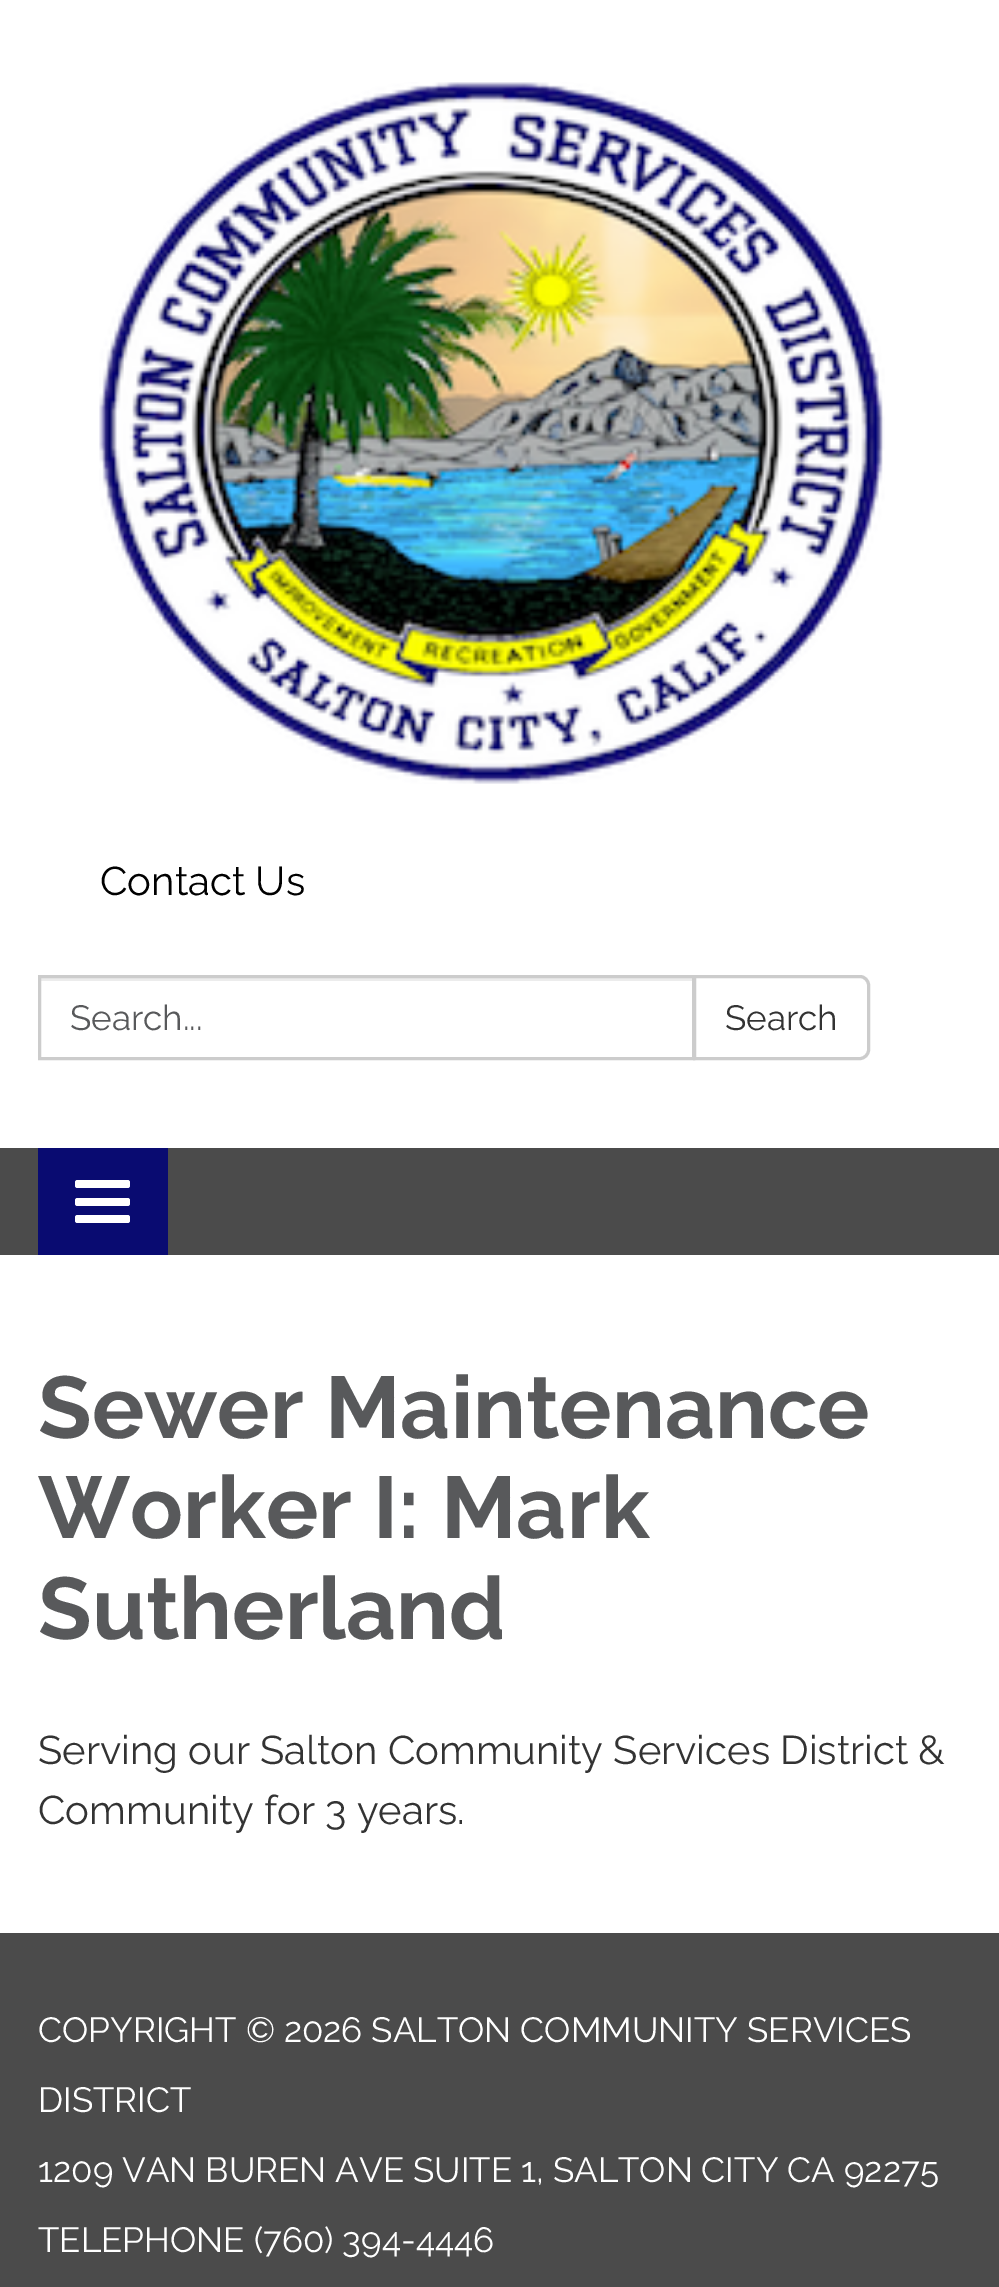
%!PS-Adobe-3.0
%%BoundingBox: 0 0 999 2287
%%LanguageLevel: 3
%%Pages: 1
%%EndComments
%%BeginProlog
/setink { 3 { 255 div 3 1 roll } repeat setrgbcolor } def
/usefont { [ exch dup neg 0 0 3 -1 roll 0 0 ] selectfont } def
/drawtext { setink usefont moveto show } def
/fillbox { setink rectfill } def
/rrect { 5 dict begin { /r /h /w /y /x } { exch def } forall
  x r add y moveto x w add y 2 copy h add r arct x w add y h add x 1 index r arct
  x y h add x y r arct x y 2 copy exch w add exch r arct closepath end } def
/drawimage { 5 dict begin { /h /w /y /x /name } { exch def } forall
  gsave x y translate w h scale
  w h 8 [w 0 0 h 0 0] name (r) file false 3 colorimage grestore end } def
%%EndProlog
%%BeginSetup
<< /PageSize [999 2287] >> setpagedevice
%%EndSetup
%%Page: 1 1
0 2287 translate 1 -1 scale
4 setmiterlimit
0 0 999 2287 75 75 75 fillbox
0 0 999 1148 255 255 255 fillbox
(assets/img1.rgb) 99 82 786 702 drawimage
(Contact Us) 100 895 /Raleway-Regular 40 0 0 0 drawtext
40 978 653 3 236 236 236 fillbox
204 204 204 setink
3 setlinewidth
39.5 976.5 654 82 rectstroke
(Search...) 70 1030 /Raleway-Regular 35 88 89 91 drawtext
255 255 255 setink
694.5 976.5 moveto 860 976.5 lineto 864.5 976.5 868.5 980.5 868.5 985 curveto 868.5 1050 lineto 868.5 1054.5 864.5 1058.5 860 1058.5 curveto 694.5 1058.5 lineto closepath gsave fill grestore
204 204 204 setink
stroke
(Search) 725 1030 /Raleway-Regular 35 51 51 51 drawtext
38 1148 130 107 9 11 113 fillbox
255 255 255 setink
75 1180 55 8 2.5 rrect fill
75 1198 55 8 2.5 rrect fill
75 1215 55 8 2.5 rrect fill
0 1255 999 678 255 255 255 fillbox
(Sewer Maintenance) 38 1438 /Raleway-Bold 87.5 88 89 91 drawtext
(Worker I: Mark) 38 1538 /Raleway-Bold 87.5 88 89 91 drawtext
(Sutherland) 38 1639 /Raleway-Bold 87.5 88 89 91 drawtext
(Serving our Salton Community Services District &) 38 1764 /Raleway-Regular 40 51 51 51 drawtext
(Community for 3 years.) 38 1824 /Raleway-Regular 40 51 51 51 drawtext
(COPYRIGHT © 2026 SALTON COMMUNITY SERVICES) 38 2042 /Raleway-Regular 35 255 255 255 drawtext
(DISTRICT) 38 2112 /Raleway-Regular 35 255 255 255 drawtext
(1209 VAN BUREN AVE SUITE 1, SALTON CITY CA 92275) 38 2182 /Raleway-Regular 35 255 255 255 drawtext
(TELEPHONE \(760\) 394-4446) 38 2252 /Raleway-Regular 35 255 255 255 drawtext
showpage
%%EOF
